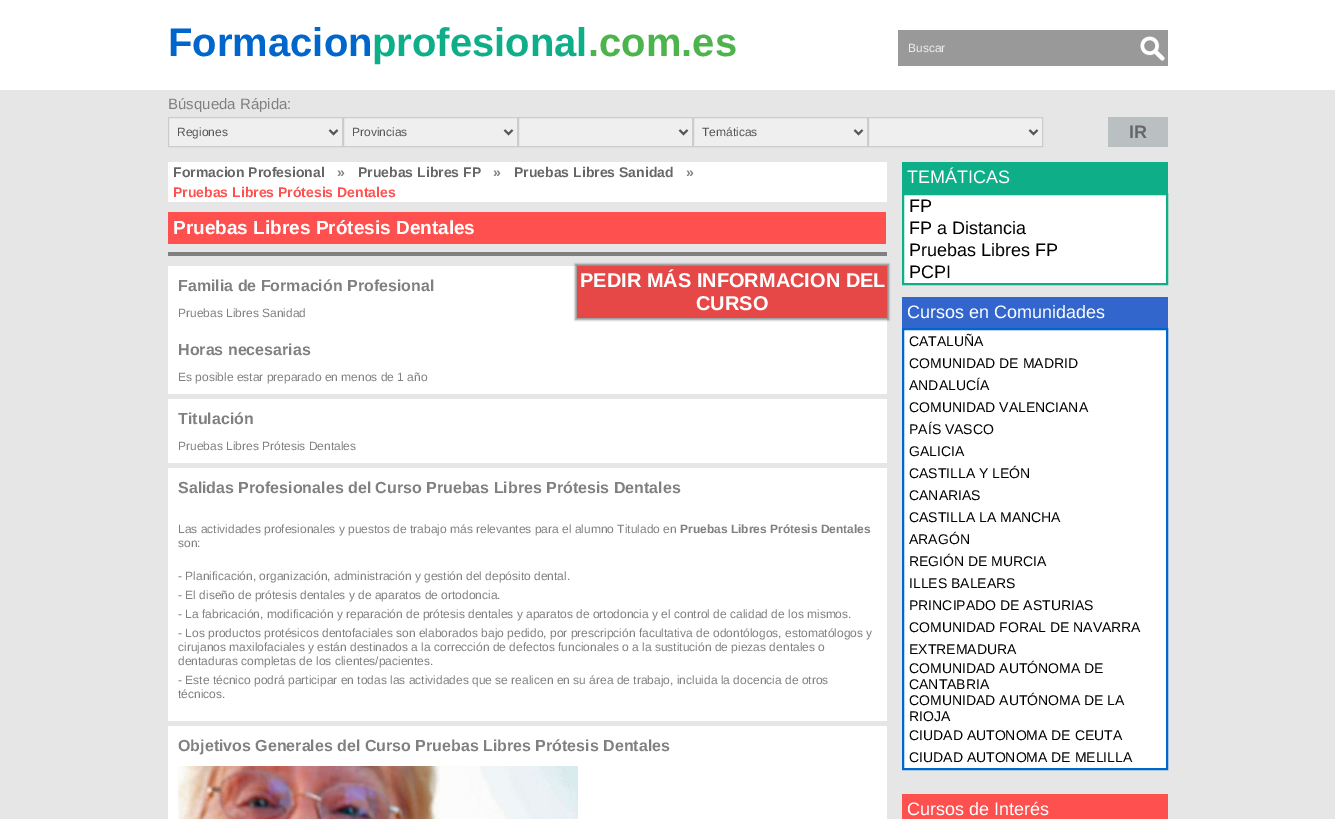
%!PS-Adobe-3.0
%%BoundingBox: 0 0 1335 819
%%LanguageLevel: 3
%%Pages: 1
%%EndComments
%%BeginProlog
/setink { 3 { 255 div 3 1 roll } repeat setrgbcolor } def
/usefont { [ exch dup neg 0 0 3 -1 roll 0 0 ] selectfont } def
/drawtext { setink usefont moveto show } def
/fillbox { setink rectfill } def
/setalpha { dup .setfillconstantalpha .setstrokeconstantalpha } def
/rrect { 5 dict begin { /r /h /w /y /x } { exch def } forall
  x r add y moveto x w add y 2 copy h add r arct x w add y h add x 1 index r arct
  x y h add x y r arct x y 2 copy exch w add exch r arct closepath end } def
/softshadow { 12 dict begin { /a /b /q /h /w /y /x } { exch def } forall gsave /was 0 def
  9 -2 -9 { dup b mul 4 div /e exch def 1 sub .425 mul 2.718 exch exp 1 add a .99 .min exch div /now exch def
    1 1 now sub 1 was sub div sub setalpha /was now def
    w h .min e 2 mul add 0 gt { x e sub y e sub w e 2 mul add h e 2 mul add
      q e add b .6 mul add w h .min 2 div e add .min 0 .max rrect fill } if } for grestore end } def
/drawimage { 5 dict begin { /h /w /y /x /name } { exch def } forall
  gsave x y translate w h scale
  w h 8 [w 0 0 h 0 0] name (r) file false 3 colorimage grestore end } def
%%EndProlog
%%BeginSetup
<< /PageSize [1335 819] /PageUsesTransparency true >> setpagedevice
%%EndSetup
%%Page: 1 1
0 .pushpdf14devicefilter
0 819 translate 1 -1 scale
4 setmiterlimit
0 0 1335 819 230 230 230 fillbox
0 0 1335 90 255 255 255 fillbox
(Formacion) 168 56 /LiberationSans-Bold 40 0 102 204 drawtext
(profesional) 372 56 /LiberationSans-Bold 40 14 175 136 drawtext
(.com.es) 588 56 /LiberationSans-Bold 40 77 179 77 drawtext
898 30 236 36 153 153 153 fillbox
(Buscar) 908 52 /LiberationSans-Regular 12 238 238 238 drawtext
(assets/img1.rgb) 1134 30 34 36 drawimage
(Búsqueda Rápida:) 168 109 /LiberationSans-Regular 15 128 128 128 drawtext
239 239 239 setink
168.5 117.5 moveto 342.5 117.5 lineto 342.5 146.5 lineto 168.5 146.5 lineto closepath gsave fill grestore
204 204 204 setink
stroke
85 85 85 setink
2 setlinewidth
329.5 130 moveto 333.5 134 lineto 337.5 130 lineto stroke
(Regiones) 177 136 /LiberationSans-Regular 12 85 85 85 drawtext
239 239 239 setink
343.5 117.5 moveto 517.5 117.5 lineto 517.5 146.5 lineto 343.5 146.5 lineto closepath gsave fill grestore
204 204 204 setink
1 setlinewidth
stroke
85 85 85 setink
2 setlinewidth
504.5 130 moveto 508.5 134 lineto 512.5 130 lineto stroke
(Provincias) 352 136 /LiberationSans-Regular 12 85 85 85 drawtext
239 239 239 setink
518.5 117.5 moveto 692.5 117.5 lineto 692.5 146.5 lineto 518.5 146.5 lineto closepath gsave fill grestore
204 204 204 setink
1 setlinewidth
stroke
85 85 85 setink
2 setlinewidth
679.5 130 moveto 683.5 134 lineto 687.5 130 lineto stroke
239 239 239 setink
693.5 117.5 moveto 867.5 117.5 lineto 867.5 146.5 lineto 693.5 146.5 lineto closepath gsave fill grestore
204 204 204 setink
1 setlinewidth
stroke
85 85 85 setink
2 setlinewidth
854.5 130 moveto 858.5 134 lineto 862.5 130 lineto stroke
(Temáticas) 702 136 /LiberationSans-Regular 12 85 85 85 drawtext
239 239 239 setink
868.5 117.5 moveto 1042.5 117.5 lineto 1042.5 146.5 lineto 868.5 146.5 lineto closepath gsave fill grestore
204 204 204 setink
1 setlinewidth
stroke
85 85 85 setink
2 setlinewidth
1029.5 130 moveto 1033.5 134 lineto 1037.5 130 lineto stroke
1108 117 60 30 186 191 193 fillbox
(IR) 1129 138 /LiberationSans-Bold 18 102 102 102 drawtext
168 162 719 40 255 255 255 fillbox
(Formacion Profesional) 173 177 /LiberationSans-Bold 14 102 102 102 drawtext
(») 337 177 /LiberationSans-Bold 14 128 128 128 drawtext
(Pruebas Libres FP) 358 177 /LiberationSans-Bold 14 102 102 102 drawtext
(») 493 177 /LiberationSans-Bold 14 128 128 128 drawtext
(Pruebas Libres Sanidad) 514 177 /LiberationSans-Bold 14 102 102 102 drawtext
(») 686 177 /LiberationSans-Bold 14 128 128 128 drawtext
(Pruebas Libres Prótesis Dentales) 173 197 /LiberationSans-Bold 14 255 80 80 drawtext
168 212 718 32 255 80 80 fillbox
(Pruebas Libres Prótesis Dentales) 173 234 /LiberationSans-Bold 19 255 255 255 drawtext
168 252 719 4 128 128 128 fillbox
168 266 719 128 255 255 255 fillbox
0 0 0 setink
575 264 314 56 0 1 0.4 softshadow
577 266 310 52 230 72 72 fillbox
(PEDIR MÁS INFORMACION DEL) 580 287 /LiberationSans-Bold 20 255 255 255 drawtext
(CURSO) 696 310 /LiberationSans-Bold 20 255 255 255 drawtext
(Familia de Formación Profesional) 178 291 /LiberationSans-Bold 16 128 128 128 drawtext
(Pruebas Libres Sanidad) 178 317 /LiberationSans-Regular 12 128 128 128 drawtext
(Horas necesarias) 178 355 /LiberationSans-Bold 16 128 128 128 drawtext
(Es posible estar preparado en menos de 1 año) 178 381 /LiberationSans-Regular 12 128 128 128 drawtext
168 399 719 64 255 255 255 fillbox
(Titulación) 178 424 /LiberationSans-Bold 16 128 128 128 drawtext
(Pruebas Libres Prótesis Dentales) 178 450 /LiberationSans-Regular 12 128 128 128 drawtext
168 468 719 253 255 255 255 fillbox
(Salidas Profesionales del Curso Pruebas Libres Prótesis Dentales) 178 493 /LiberationSans-Bold 16 128 128 128 drawtext
(Las actividades profesionales y puestos de trabajo más relevantes para el alumno Titulado en) 178 533 /LiberationSans-Regular 12 128 128 128 drawtext
(Pruebas Libres Prótesis Dentales) 680 533 /LiberationSans-Bold 12 128 128 128 drawtext
(son:) 178 547 /LiberationSans-Regular 12 128 128 128 drawtext
(- Planificación, organización, administración y gestión del depósito dental.) 178 580 /LiberationSans-Regular 12 128 128 128 drawtext
(- El diseño de prótesis dentales y de aparatos de ortodoncia.) 178 599 /LiberationSans-Regular 12 128 128 128 drawtext
(- La fabricación, modificación y reparación de prótesis dentales y aparatos de ortodoncia y el control de calidad de los mismos.) 178 618 /LiberationSans-Regular 12 128 128 128 drawtext
(- Los productos protésicos dentofaciales son elaborados bajo pedido, por prescripción facultativa de odontólogos, estomatólogos y) 178 637 /LiberationSans-Regular 12 128 128 128 drawtext
(cirujanos maxilofaciales y están destinados a la corrección de defectos funcionales o a la sustitución de piezas dentales o) 178 651 /LiberationSans-Regular 12 128 128 128 drawtext
(dentaduras completas de los clientes/pacientes.) 178 665 /LiberationSans-Regular 12 128 128 128 drawtext
(- Este técnico podrá participar en todas las actividades que se realicen en su área de trabajo, incluida la docencia de otros) 178 684 /LiberationSans-Regular 12 128 128 128 drawtext
(técnicos.) 178 698 /LiberationSans-Regular 12 128 128 128 drawtext
168 726 719 93 255 255 255 fillbox
(Objetivos Generales del Curso Pruebas Libres Prótesis Dentales) 178 751 /LiberationSans-Bold 16 128 128 128 drawtext
(assets/img2.rgb) 178 766 400 53 drawimage
902 162 266 31 14 175 136 fillbox
(TEMÁTICAS) 907 183 /LiberationSans-Regular 18 255 255 255 drawtext
903 194 moveto 1167 194 lineto 1167 284 lineto 903 284 lineto closepath gsave fill grestore
14 175 136 setink
stroke
(FP) 909 212 /LiberationSans-Regular 18 0 0 0 drawtext
(FP a Distancia) 909 234 /LiberationSans-Regular 18 0 0 0 drawtext
(Pruebas Libres FP) 909 256 /LiberationSans-Regular 18 0 0 0 drawtext
(PCPI) 909 278 /LiberationSans-Regular 18 0 0 0 drawtext
902 297 266 31 51 102 204 fillbox
(Cursos en Comunidades) 907 318 /LiberationSans-Regular 18 255 255 255 drawtext
903 329 moveto 1167 329 lineto 1167 769 lineto 903 769 lineto closepath gsave fill grestore
0 102 204 setink
stroke
(CATALUÑA) 909 346 /LiberationSans-Regular 14 0 0 0 drawtext
(COMUNIDAD DE MADRID) 909 368 /LiberationSans-Regular 14 0 0 0 drawtext
(ANDALUCÍA) 909 390 /LiberationSans-Regular 14 0 0 0 drawtext
(COMUNIDAD VALENCIANA) 909 412 /LiberationSans-Regular 14 0 0 0 drawtext
(PAÍS VASCO) 909 434 /LiberationSans-Regular 14 0 0 0 drawtext
(GALICIA) 909 456 /LiberationSans-Regular 14 0 0 0 drawtext
(CASTILLA Y LEÓN) 909 478 /LiberationSans-Regular 14 0 0 0 drawtext
(CANARIAS) 909 500 /LiberationSans-Regular 14 0 0 0 drawtext
(CASTILLA LA MANCHA) 909 522 /LiberationSans-Regular 14 0 0 0 drawtext
(ARAGÓN) 909 544 /LiberationSans-Regular 14 0 0 0 drawtext
(REGIÓN DE MURCIA) 909 566 /LiberationSans-Regular 14 0 0 0 drawtext
(ILLES BALEARS) 909 588 /LiberationSans-Regular 14 0 0 0 drawtext
(PRINCIPADO DE ASTURIAS) 909 610 /LiberationSans-Regular 14 0 0 0 drawtext
(COMUNIDAD FORAL DE NAVARRA) 909 632 /LiberationSans-Regular 14 0 0 0 drawtext
(EXTREMADURA) 909 654 /LiberationSans-Regular 14 0 0 0 drawtext
(COMUNIDAD AUTÓNOMA DE) 909 673 /LiberationSans-Regular 14 0 0 0 drawtext
(CANTABRIA) 909 689 /LiberationSans-Regular 14 0 0 0 drawtext
(COMUNIDAD AUTÓNOMA DE LA) 909 705 /LiberationSans-Regular 14 0 0 0 drawtext
(RIOJA) 909 721 /LiberationSans-Regular 14 0 0 0 drawtext
(CIUDAD AUTONOMA DE CEUTA) 909 740 /LiberationSans-Regular 14 0 0 0 drawtext
(CIUDAD AUTONOMA DE MELILLA) 909 762 /LiberationSans-Regular 14 0 0 0 drawtext
902 794 266 25 255 80 80 fillbox
(Cursos de Interés) 907 815 /LiberationSans-Regular 18 255 255 255 drawtext
.poppdf14devicefilter showpage
%%EOF
